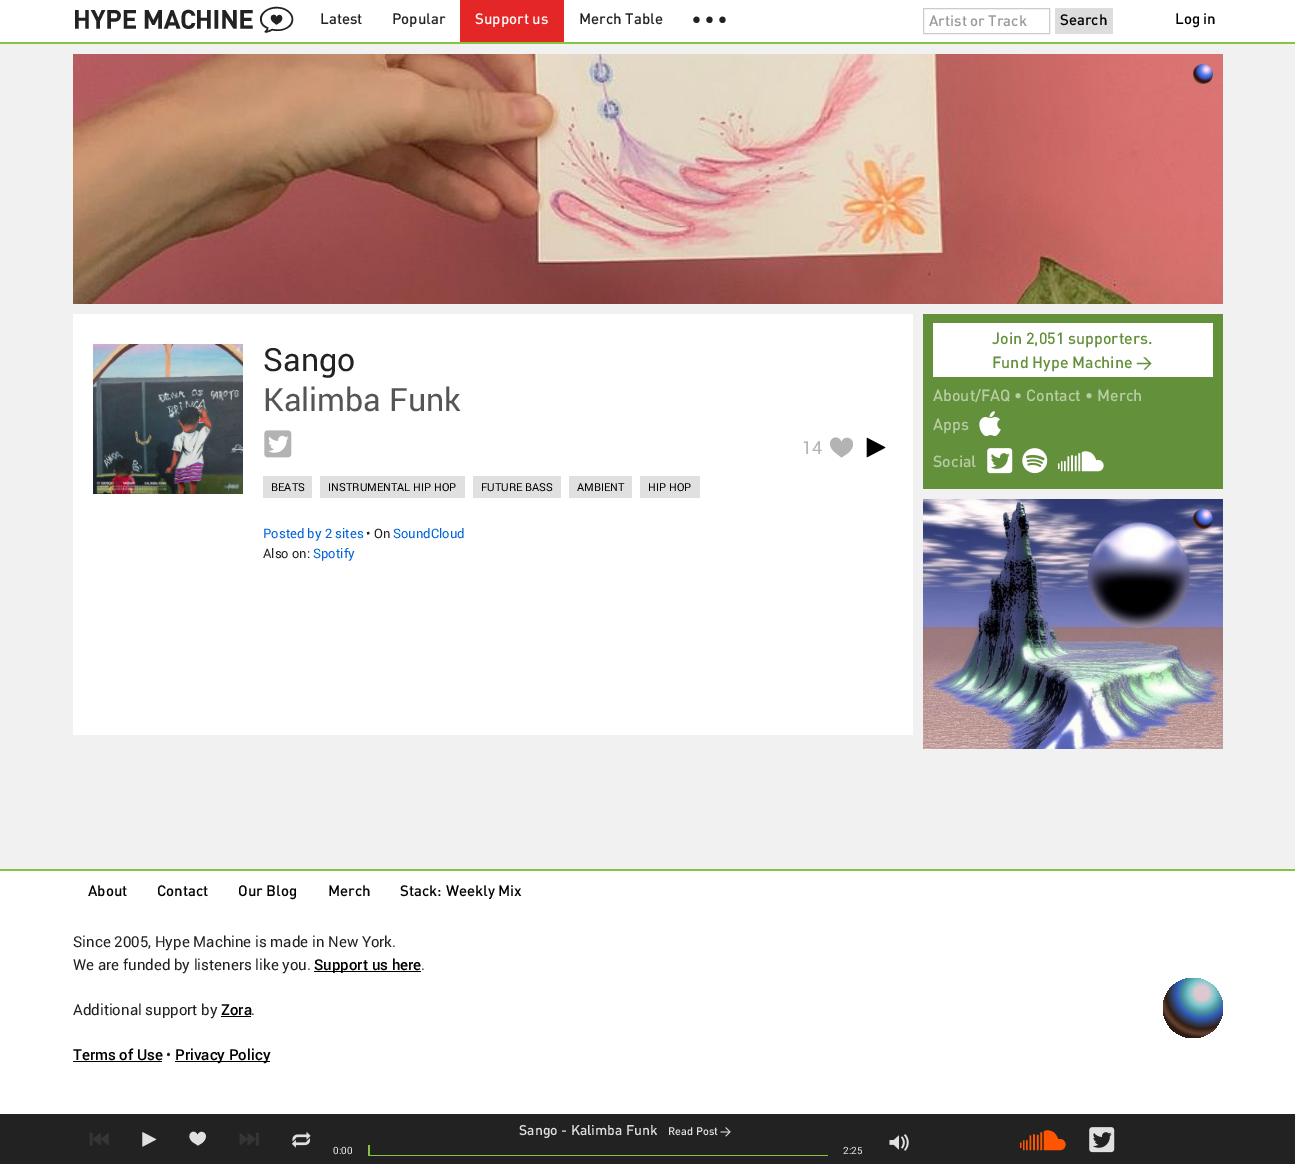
%!PS-Adobe-3.0
%%BoundingBox: 0 0 1295 1164
%%LanguageLevel: 3
%%Pages: 1
%%EndComments
%%BeginProlog
/setink { 3 { 255 div 3 1 roll } repeat setrgbcolor } def
/usefont { [ exch dup neg 0 0 3 -1 roll 0 0 ] selectfont } def
/drawtext { setink usefont moveto show } def
/fillbox { setink rectfill } def
/disc { newpath 0 360 arc closepath } def
/drawimage { 5 dict begin { /h /w /y /x /name } { exch def } forall
  gsave x y translate w h scale
  w h 8 [w 0 0 h 0 0] name (r) file false 3 colorimage grestore end } def
%%EndProlog
%%BeginSetup
<< /PageSize [1295 1164] >> setpagedevice
%%EndSetup
%%Page: 1 1
0 1164 translate 1 -1 scale
4 setmiterlimit
0 0 1295 1164 241 241 241 fillbox
0 0 1295 42 255 255 255 fillbox
0 42 1295 2 131 196 65 fillbox
(1) 73 28 /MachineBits-Regular 38 34 34 34 drawtext
(Latest) 320 24 /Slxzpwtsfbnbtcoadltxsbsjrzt-Medium 15 34 34 34 drawtext
(Popular) 392 24 /Slxzpwtsfbnbtcoadltxsbsjrzt-Medium 15 34 34 34 drawtext
460 0 104 42 228 38 38 fillbox
(Support us) 475 24 /Slxzpwtsfbnbtcoadltxsbsjrzt-Medium 15 255 255 255 drawtext
(Merch Table) 579 24 /Slxzpwtsfbnbtcoadltxsbsjrzt-Medium 15 34 34 34 drawtext
(● ● ●) 692 24 /LiberationSerif-Bold 15 34 34 34 drawtext
204 204 204 setink
923.5 8.5 126 25 rectstroke
(Artist or Track) 929 26 /Slxzpwtsfbnbtcoadltxsbsjrzt-Medium 15 153 153 153 drawtext
1055 8 58 26 221 221 221 fillbox
(Search) 1060 25 /Slxzpwtsfbnbtcoadltxsbsjrzt-Medium 15 0 0 0 drawtext
(Log in) 1175 24 /Slxzpwtsfbnbtcoadltxsbsjrzt-Medium 15 0 0 0 drawtext
(assets/img1.rgb) 73 54 1150 250 drawimage
73 314 840 421 255 255 255 fillbox
(assets/img2.rgb) 93 344 150 150 drawimage
(Sango) 263 371 /Roboto-Regular 32 34 34 34 drawtext
(Kalimba Funk) 263 411 /Roboto-Regular 32 85 85 85 drawtext
(assets/img3.rgb) 264 430 28 28 drawimage
(14) 802 454 /Roboto-Regular 18 179 179 179 drawtext
841.5 442 moveto 846 431.5 861 442.5 847.5 453.5 curveto 841.5 457.5 lineto 834.5 452 lineto 823 441.5 837 431.5 841.5 442 curveto closepath fill
(assets/img4.rgb) 866 437 20 21 drawimage
263 476 49 22 224 224 224 fillbox
(BEATS) 271 491 /Roboto-Regular 11 0 0 0 drawtext
320 476 145 22 224 224 224 fillbox
(INSTRUMENTAL HIP HOP) 328 491 /Roboto-Regular 11 0 0 0 drawtext
473 476 88 22 224 224 224 fillbox
(FUTURE BASS) 481 491 /Roboto-Regular 11 0 0 0 drawtext
569 476 63 22 224 224 224 fillbox
(AMBIENT) 577 491 /Roboto-Regular 11 0 0 0 drawtext
640 476 60 22 224 224 224 fillbox
(HIP HOP) 648 491 /Roboto-Regular 11 0 0 0 drawtext
(Posted by 2 sites) 263 538 /Roboto-Regular 13 0 99 220 drawtext
(• On) 366 538 /Roboto-Regular 13 34 34 34 drawtext
(SoundCloud) 393 538 /Roboto-Regular 13 0 99 220 drawtext
(Also on:) 263 558 /Roboto-Regular 13 34 34 34 drawtext
(Spotify) 313 558 /Roboto-Regular 13 0 99 220 drawtext
923 314 300 175 99 144 58 fillbox
933 323 280 54 255 255 255 fillbox
(Join 2,051 supporters.) 992 344 /Slxzpwtsfbnbtcoadltxsbsjrzt-Medium 16 99 144 58 drawtext
(Fund Hype Machine →) 992 368 /Slxzpwtsfbnbtcoadltxsbsjrzt-Medium 16 99 144 58 drawtext
gsave
933 389 280 16 rectclip
(About/FAQ) 933 401 /Slxzpwtsfbnbtcoadltxsbsjrzt-Medium 16 185 205 165 drawtext
grestore
(•) 1014 401 /Slxzpwtsfbnbtcoadltxsbsjrzt-Medium 16 185 205 165 drawtext
(Contact) 1026 401 /Slxzpwtsfbnbtcoadltxsbsjrzt-Medium 16 185 205 165 drawtext
(•) 1085 401 /Slxzpwtsfbnbtcoadltxsbsjrzt-Medium 16 185 205 165 drawtext
(Merch) 1097 401 /Slxzpwtsfbnbtcoadltxsbsjrzt-Medium 16 185 205 165 drawtext
(Apps) 933 430 /Slxzpwtsfbnbtcoadltxsbsjrzt-Medium 16 185 205 165 drawtext
(assets/img5.rgb) 979 411 22 26 drawimage
(Social) 933 467 /Slxzpwtsfbnbtcoadltxsbsjrzt-Medium 16 185 205 165 drawtext
(assets/img6.rgb) 987 448 26 26 drawimage
(assets/img7.rgb) 1022 448 26 26 drawimage
(9) 1057 469 /MachineBits-Regular 20 255 255 255 drawtext
(assets/img8.rgb) 923 499 300 250 drawimage
0 871 1295 243 255 255 255 fillbox
0 869 1295 2 131 196 65 fillbox
(About) 88 896 /Slxzpwtsfbnbtcoadltxsbsjrzt-Medium 15 0 0 0 drawtext
(Contact) 157 896 /Slxzpwtsfbnbtcoadltxsbsjrzt-Medium 15 0 0 0 drawtext
(Our Blog) 238 896 /Slxzpwtsfbnbtcoadltxsbsjrzt-Medium 15 0 0 0 drawtext
(Merch) 328 896 /Slxzpwtsfbnbtcoadltxsbsjrzt-Medium 15 0 0 0 drawtext
(Stack: Weekly Mix) 400 896 /Slxzpwtsfbnbtcoadltxsbsjrzt-Medium 15 0 0 0 drawtext
(Since 2005, Hype Machine is made in New York.) 73 947 /Roboto-Regular 15 34 34 34 drawtext
(We are funded by listeners like you.) 73 970 /Roboto-Regular 15 34 34 34 drawtext
314 971 107 1 0 0 0 fillbox
(Support us here) 314 970 /Roboto-Medium 15 0 0 0 drawtext
(.) 421 970 /Roboto-Regular 15 34 34 34 drawtext
(Additional support by) 73 1015 /Roboto-Regular 15 34 34 34 drawtext
(Zora) 221 1015 /Roboto-Medium 15 0 0 0 drawtext
221 1016 30 1 0 0 0 fillbox
(.) 251 1015 /Roboto-Regular 15 34 34 34 drawtext
gsave 1193 1008 30 disc clip newpath 1202 993 translate 45 45 scale
<< /ShadingType 3 /ColorSpace /DeviceRGB /Coords [0 0 0 0 0 1] /Extend [true true] /Function << /FunctionType 3 /Domain [0 1] /Functions [<< /FunctionType 2 /Domain [0 1] /C0 [0.863 0.784 0.816] /C1 [0.863 0.784 0.816] /N 1 >> << /FunctionType 2 /Domain [0 1] /C0 [0.863 0.784 0.816] /C1 [0.471 0.784 0.812] /N 1 >> << /FunctionType 2 /Domain [0 1] /C0 [0.471 0.784 0.812] /C1 [0.302 0.584 0.62] /N 1 >> << /FunctionType 2 /Domain [0 1] /C0 [0.302 0.584 0.62] /C1 [0.188 0.369 0.725] /N 1 >> << /FunctionType 2 /Domain [0 1] /C0 [0.188 0.369 0.725] /C1 [0.192 0.122 0.071] /N 1 >> << /FunctionType 2 /Domain [0 1] /C0 [0.192 0.122 0.071] /C1 [0.408 0.259 0.196] /N 1 >> << /FunctionType 2 /Domain [0 1] /C0 [0.408 0.259 0.196] /C1 [0.176 0.11 0.075] /N 1 >>] /Bounds [0.16 0.3 0.43 0.56 0.8 0.91] /Encode [0 1 0 1 0 1 0 1 0 1 0 1 0 1] >> >> shfill grestore
(Terms of Use) 73 1060 /Roboto-Medium 15 0 0 0 drawtext
73 1061 89 1 0 0 0 fillbox
(•) 166 1060 /Roboto-Regular 15 34 34 34 drawtext
175 1061 95 1 0 0 0 fillbox
(Privacy Policy) 175 1060 /Roboto-Medium 15 0 0 0 drawtext
0 1114 1295 50 34 34 34 fillbox
(assets/img9.rgb) 89 1132 20 14 drawimage
(assets/img10.rgb) 142 1132 15 15 drawimage
224 224 224 setink
197.5 1135 moveto 201 1127.5 211.5 1135 202 1143 curveto 198 1145.5 lineto 192.5 1142 lineto 184.5 1134.5 194.5 1127.5 197.5 1135 curveto closepath fill
(assets/img11.rgb) 239 1132 20 14 drawimage
(assets/img12.rgb) 291 1131 20 17 drawimage
(Sango - Kalimba Funk) 519 1135 /Slxzpwtsfbnbtcoadltxsbsjrzt-Medium 14 224 224 224 drawtext
(Read Post →) 668 1135 /Slxzpwtsfbnbtcoadltxsbsjrzt-Medium 11 224 224 224 drawtext
(9) 1019 1148 /MachineBits-Regular 20 255 85 0 drawtext
(assets/img13.rgb) 1089 1127 26 26 drawimage
(0:00) 333 1154 /Roboto-Regular 10 224 224 224 drawtext
368 1155 460 1 131 196 65 fillbox
368 1145 2 10 131 196 65 fillbox
(2:25) 843 1154 /Roboto-Regular 10 224 224 224 drawtext
(assets/img14.rgb) 889 1134 20 17 drawimage
showpage
%%EOF
